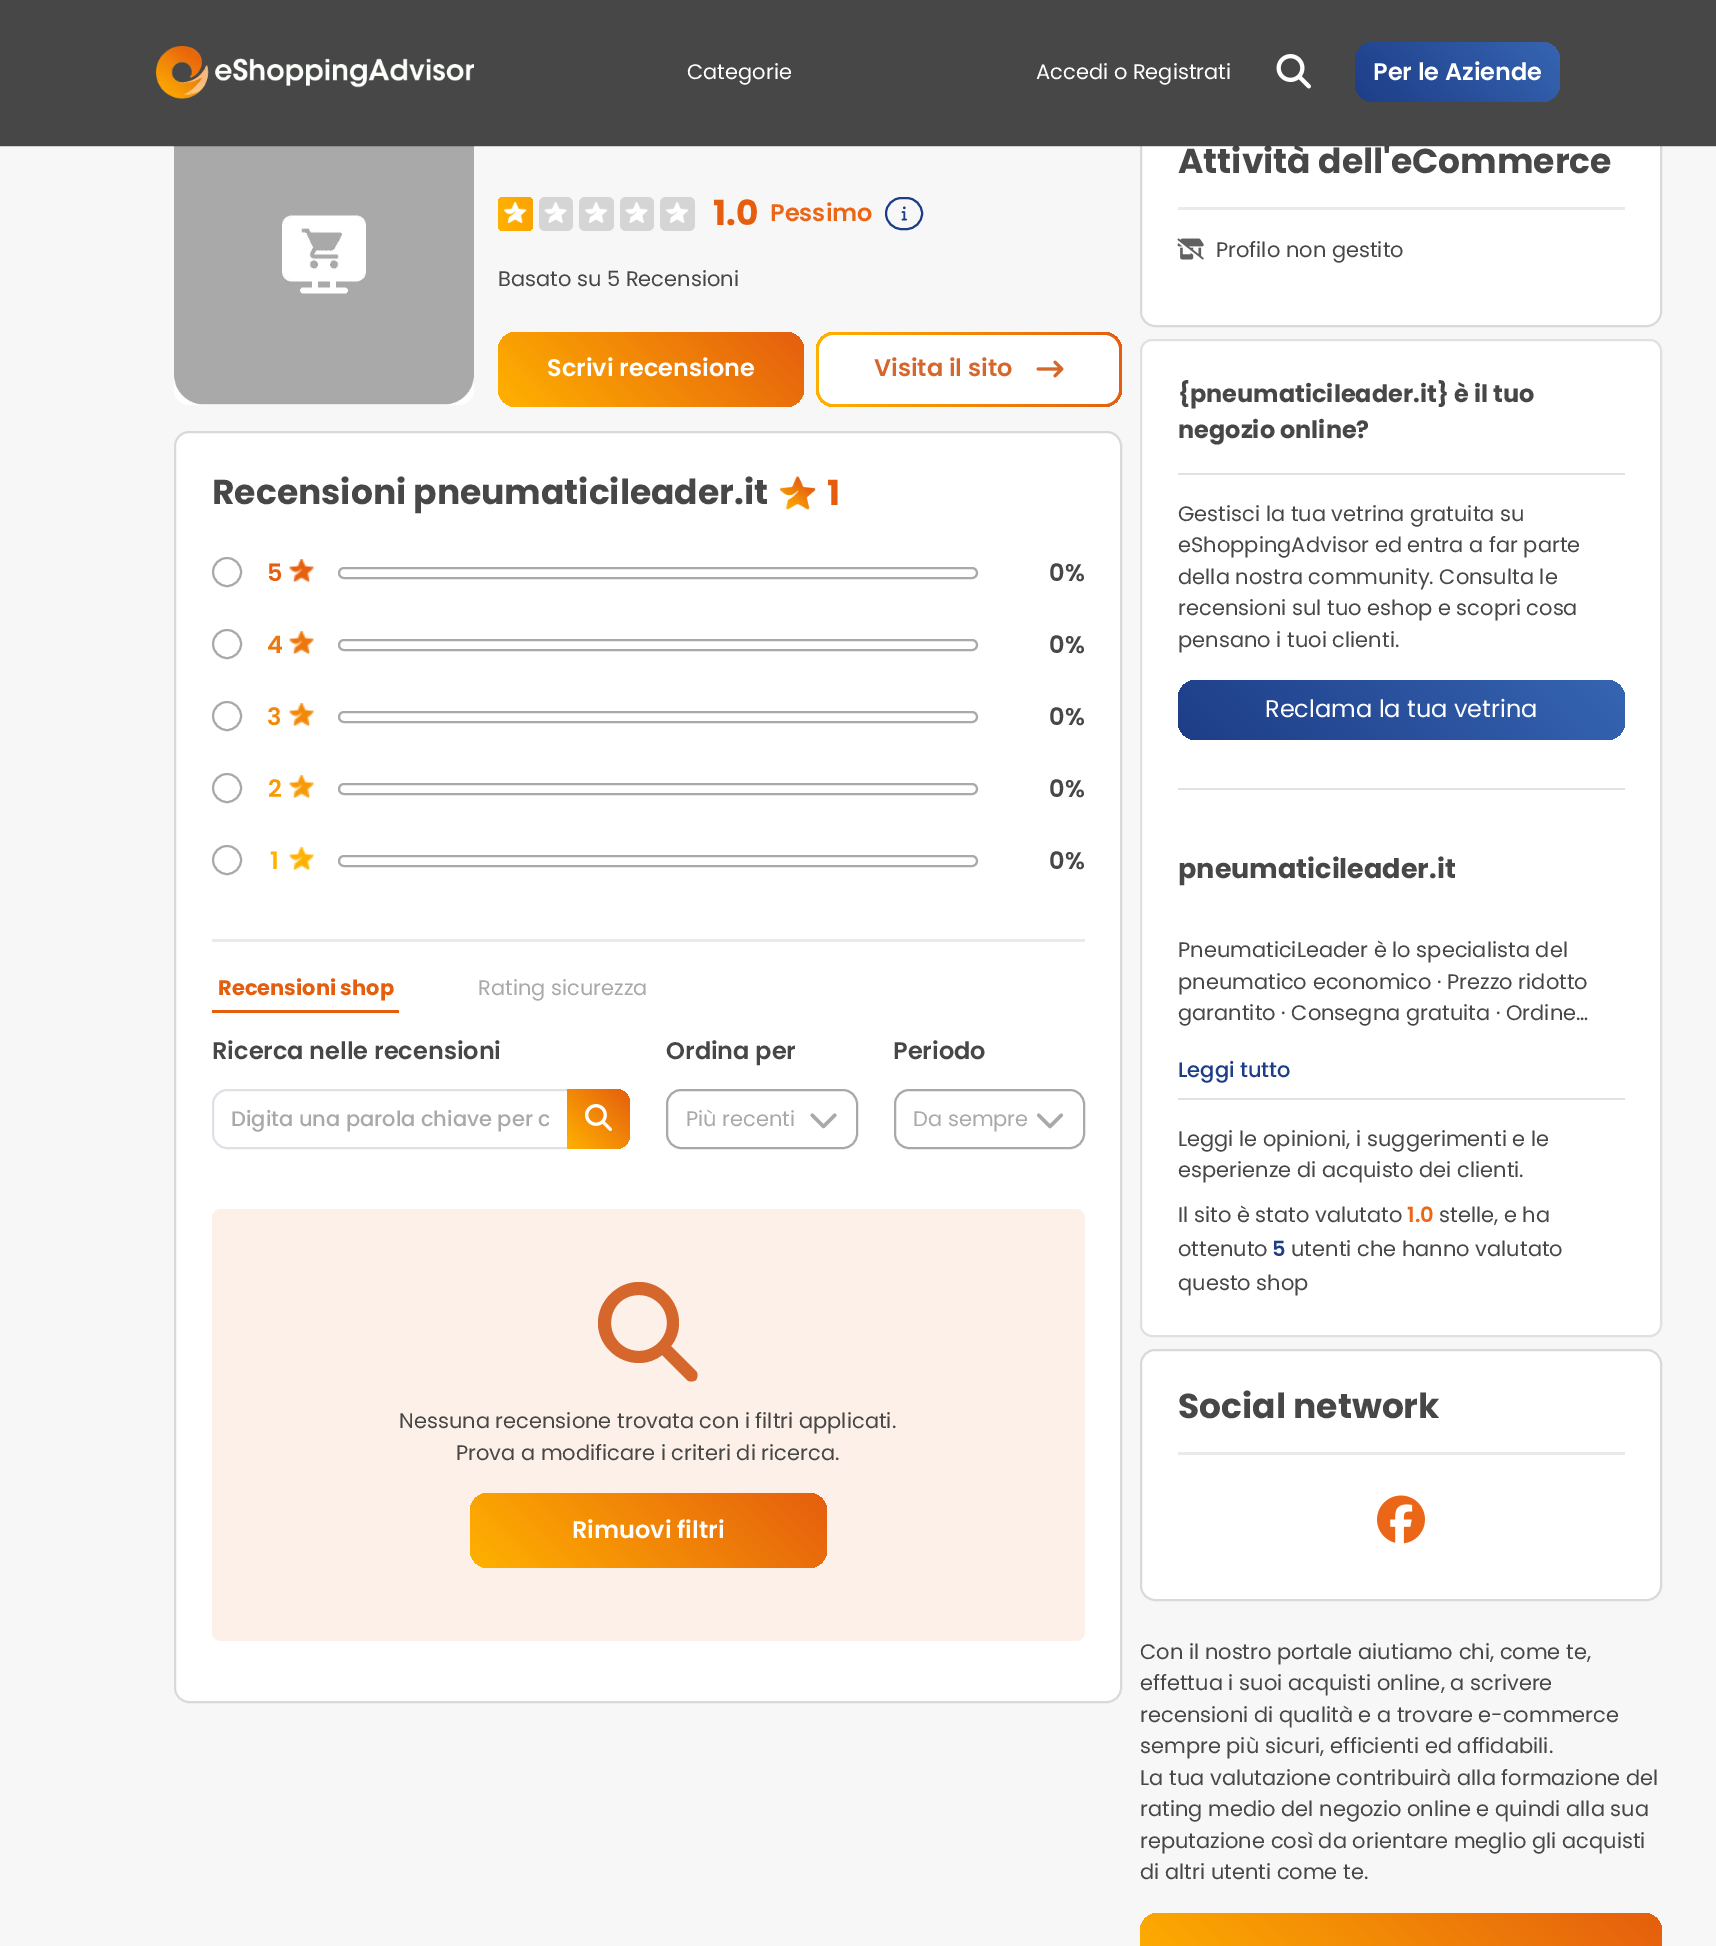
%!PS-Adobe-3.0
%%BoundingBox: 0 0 1716 1946
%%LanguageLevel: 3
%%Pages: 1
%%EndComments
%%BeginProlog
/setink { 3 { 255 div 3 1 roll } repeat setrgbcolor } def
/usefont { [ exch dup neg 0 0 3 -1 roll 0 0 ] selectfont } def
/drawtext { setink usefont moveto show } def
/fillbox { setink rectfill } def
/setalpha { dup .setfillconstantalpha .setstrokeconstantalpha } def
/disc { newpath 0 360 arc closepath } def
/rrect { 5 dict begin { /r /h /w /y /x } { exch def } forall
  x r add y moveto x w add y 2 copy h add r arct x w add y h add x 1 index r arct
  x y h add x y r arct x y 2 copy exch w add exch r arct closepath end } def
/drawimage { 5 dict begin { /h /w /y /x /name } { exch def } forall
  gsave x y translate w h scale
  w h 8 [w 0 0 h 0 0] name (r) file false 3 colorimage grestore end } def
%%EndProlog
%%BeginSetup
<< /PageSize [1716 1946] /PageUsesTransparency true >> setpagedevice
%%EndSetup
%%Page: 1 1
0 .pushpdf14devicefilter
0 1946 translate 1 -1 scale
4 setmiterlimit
0 0 1716 1946 247 247 247 fillbox
255 255 255 setink
174 105 300 300 15 rrect fill
(assets/img3.rgb) 174 146 300 259 drawimage
1140 105 522 222 15 rrect fill
0.44 setalpha
169 169 169 setink
2 setlinewidth
1141 106 520 220 14 rrect stroke
1 setalpha
(Attività dell'eCommerce) 1178 173 /Poppins-Bold 34.5 71 71 71 drawtext
0.16 setalpha
0 146 1716 1 0 0 0 fillbox
1 setalpha
0 0 1716 146 71 71 71 fillbox
(assets/img1.rgb) 156 46 318 53 drawimage
(Categorie) 687 79 /Poppins-Regular 21 255 255 255 drawtext
(Accedi o Registrati) 1036 79 /Poppins-Regular 21 255 255 255 drawtext
(assets/img2.rgb) 1276 54 35 35 drawimage
gsave 1355 42 205 60 18 rrect clip newpath
<< /ShadingType 2 /ColorSpace /DeviceRGB /Coords [1391 138 1524 5.6] /Extend [true true] /Function << /FunctionType 2 /Domain [0 1] /C0 [0.118 0.239 0.529] /C1 [0.212 0.396 0.698] /N 1 >> >> shfill grestore
(Per le Aziende) 1373 80 /Poppins-SemiBold 24 255 255 255 drawtext
gsave 498 197 35 34 6 rrect clip newpath
<< /ShadingType 2 /ColorSpace /DeviceRGB /Coords [498 214 533 214] /Extend [true true] /Function << /FunctionType 2 /Domain [0 1] /C0 [1 0.694 0] /C1 [0.984 0.639 0.012] /N 1 >> >> shfill grestore
(assets/img4.rgb) 504 202 23 21 drawimage
213 213 213 setink
539 197 34 34 6 rrect fill
(assets/img5.rgb) 544 202 23 21 drawimage
579 197 35 34 6 rrect fill
(assets/img6.rgb) 585 202 23 21 drawimage
620 197 34 34 6 rrect fill
(assets/img7.rgb) 625 202 23 21 drawimage
660 197 35 34 6 rrect fill
(assets/img6.rgb) 666 202 23 21 drawimage
(1.0) 713 225 /Poppins-Bold 34.5 229 94 14 drawtext
(Pessimo) 770 221 /Poppins-SemiBold 24 235 103 23 drawtext
30 61 135 setink
886 198 36 31 15.5 rrect stroke
(assets/img8.rgb) 901 206 7 15 drawimage
(Basato su 5 Recensioni) 498 286 /Poppins-Regular 21 71 71 71 drawtext
gsave 498 332 306 75 18 rrect clip newpath
<< /ShadingType 2 /ColorSpace /DeviceRGB /Coords [556 464 746 274] /Extend [true true] /Function << /FunctionType 2 /Domain [0 1] /C0 [1 0.694 0] /C1 [0.898 0.369 0.055] /N 1 >> >> shfill grestore
(Scrivi recensione) 547 376 /Poppins-SemiBold 24 255 255 255 drawtext
gsave 816 332 306 75 18 rrect clip newpath
<< /ShadingType 2 /ColorSpace /DeviceRGB /Coords [816 369 1122 369] /Extend [true true] /Function << /FunctionType 2 /Domain [0 1] /C0 [1 0.694 0] /C1 [0.898 0.369 0.055] /N 1 >> >> shfill grestore
819 335 300 69 15 rrect fill
(Visita il sito) 874 376 /Poppins-SemiBold 24 213 102 44 drawtext
(assets/img9.rgb) 1036 360 28 18 drawimage
1178 207 447 3 234 234 234 fillbox
(assets/img10.rgb) 1177 238 27 22 drawimage
(Profilo non gestito) 1216 257 /Poppins-Regular 21 71 71 71 drawtext
255 255 255 setink
1140 339 522 998 12 rrect fill
0.12 setalpha
0 0 0 setink
1141 340 520 996 11 rrect stroke
1 setalpha
1178 473 447 2 222 226 230 fillbox
({pneumaticileader.it} è il tuo) 1178 402 /Poppins-Bold 24 71 71 71 drawtext
(negozio online?) 1178 438 /Poppins-Bold 24 71 71 71 drawtext
(Gestisci la tua vetrina gratuita su) 1178 521 /Poppins-Regular 21 71 71 71 drawtext
(eShoppingAdvisor ed entra a far parte) 1178 552 /Poppins-Regular 21 71 71 71 drawtext
(della nostra community. Consulta le) 1178 584 /Poppins-Regular 21 71 71 71 drawtext
(recensioni sul tuo eshop e scopri cosa) 1178 615 /Poppins-Regular 21 71 71 71 drawtext
(pensano i tuoi clienti.) 1178 647 /Poppins-Regular 21 71 71 71 drawtext
gsave 1178 680 447 60 18 rrect clip newpath
<< /ShadingType 2 /ColorSpace /DeviceRGB /Coords [1274 836 1528 583] /Extend [true true] /Function << /FunctionType 2 /Domain [0 1] /C0 [0.118 0.239 0.529] /C1 [0.212 0.396 0.698] /N 1 >> >> shfill grestore
(Reclama la tua vetrina) 1265 717 /Poppins-Regular 24 255 255 255 drawtext
1178 788 447 2 222 226 230 fillbox
(pneumaticileader.it) 1178 878 /Poppins-Bold 27 71 71 71 drawtext
(PneumaticiLeader è lo specialista del) 1178 957 /Poppins-Regular 21 71 71 71 drawtext
(pneumatico economico · Prezzo ridotto) 1178 989 /Poppins-Regular 21 71 71 71 drawtext
(garantito · Consegna gratuita · Ordine…) 1178 1020 /Poppins-Regular 21 71 71 71 drawtext
(Leggi tutto) 1178 1077 /Poppins-Medium 21 30 61 135 drawtext
1178 1098 447 2 222 226 230 fillbox
(Leggi le opinioni, i suggerimenti e le) 1178 1146 /Poppins-Regular 21 71 71 71 drawtext
(esperienze di acquisto dei clienti.) 1178 1177 /Poppins-Regular 21 71 71 71 drawtext
(Il sito è stato valutato) 1178 1222 /Poppins-Regular 21 71 71 71 drawtext
(1.0) 1407 1222 /Poppins-SemiBold 21 235 103 23 drawtext
(stelle, e ha) 1439 1222 /Poppins-Regular 21 71 71 71 drawtext
(ottenuto) 1178 1256 /Poppins-Regular 21 71 71 71 drawtext
(5) 1272 1256 /Poppins-SemiBold 21 30 61 135 drawtext
(utenti che hanno valutato) 1291 1256 /Poppins-Regular 21 71 71 71 drawtext
(questo shop) 1178 1290 /Poppins-Regular 21 71 71 71 drawtext
255 255 255 setink
1140 1349 522 252 15 rrect fill
0.44 setalpha
169 169 169 setink
1141 1350 520 250 14 rrect stroke
1 setalpha
(Social network) 1178 1418 /Poppins-Bold 34.5 71 71 71 drawtext
1178 1452 447 3 234 234 234 fillbox
(assets/img11.rgb) 1377 1495 48 49 drawimage
(Con il nostro portale aiutiamo chi, come te,) 1140 1659 /Poppins-Regular 21 71 71 71 drawtext
(effettua i suoi acquisti online, a scrivere) 1140 1690 /Poppins-Regular 21 71 71 71 drawtext
(recensioni di qualità e a trovare e-commerce) 1140 1722 /Poppins-Regular 21 71 71 71 drawtext
(sempre più sicuri, efficienti ed affidabili.) 1140 1753 /Poppins-Regular 21 71 71 71 drawtext
(La tua valutazione contribuirà alla formazione del) 1140 1785 /Poppins-Regular 21 71 71 71 drawtext
(rating medio del negozio online e quindi alla sua) 1140 1816 /Poppins-Regular 21 71 71 71 drawtext
(reputazione così da orientare meglio gli acquisti) 1140 1848 /Poppins-Regular 21 71 71 71 drawtext
(di altri utenti come te.) 1140 1879 /Poppins-Regular 21 71 71 71 drawtext
gsave 1140 1913 522 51 18 rrect clip newpath
<< /ShadingType 2 /ColorSpace /DeviceRGB /Coords [1252 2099 1550 1801] /Extend [true true] /Function << /FunctionType 2 /Domain [0 1] /C0 [1 0.694 0] /C1 [0.898 0.369 0.055] /N 1 >> >> shfill grestore
255 255 255 setink
174 431 948 1272 15 rrect fill
0.44 setalpha
169 169 169 setink
175 432 946 1270 14 rrect stroke
1 setalpha
(Recensioni pneumaticileader.it) 212 504 /Poppins-Bold 34.5 71 71 71 drawtext
(assets/img12.rgb) 780 476 36 34 drawimage
(1) 827 505 /Poppins-Bold 34.5 229 94 14 drawtext
169 169 169 setink
227 572 14 disc stroke
(5) 267 581 /Poppins-SemiBold 24 229 94 14 drawtext
(assets/img13.rgb) 289 559 25 23 drawimage
169 169 169 setink
339 568 638 10 5 rrect stroke
(0%) 1049 581 /Poppins-SemiBold 24 71 71 71 drawtext
169 169 169 setink
227 644 14 disc stroke
(4) 267 653 /Poppins-SemiBold 24 237 119 10 drawtext
(assets/img14.rgb) 289 631 25 23 drawimage
169 169 169 setink
339 640 638 10 5 rrect stroke
(0%) 1049 653 /Poppins-SemiBold 24 71 71 71 drawtext
169 169 169 setink
227 716 14 disc stroke
(3) 267 725 /Poppins-SemiBold 24 243 136 8 drawtext
(assets/img15.rgb) 289 703 25 23 drawimage
169 169 169 setink
339 712 638 10 5 rrect stroke
(0%) 1049 725 /Poppins-SemiBold 24 71 71 71 drawtext
169 169 169 setink
227 788 14 disc stroke
(2) 268 797 /Poppins-SemiBold 24 248 154 5 drawtext
(assets/img16.rgb) 289 775 25 23 drawimage
169 169 169 setink
339 784 638 10 5 rrect stroke
(0%) 1049 797 /Poppins-SemiBold 24 71 71 71 drawtext
169 169 169 setink
227 860 14 disc stroke
(1) 270 869 /Poppins-SemiBold 24 255 177 0 drawtext
(assets/img17.rgb) 289 847 25 23 drawimage
169 169 169 setink
339 856 638 10 5 rrect stroke
(0%) 1049 869 /Poppins-SemiBold 24 71 71 71 drawtext
212 939 873 3 234 234 234 fillbox
212 1010 187 3 229 94 14 fillbox
(Recensioni shop) 218 995 /Poppins-Bold 21 229 94 14 drawtext
(Rating sicurezza) 478 995 /Poppins-Regular 21 169 169 169 drawtext
(Ricerca nelle recensioni) 212 1059 /Poppins-SemiBold 24 71 71 71 drawtext
222 226 230 setink
227 1090 moveto 568 1090 lineto 568 1148 lineto 227 1148 lineto 219.5 1148 213 1141.5 213 1134 curveto 213 1104 lineto 213 1096.5 219.5 1090 227 1090 curveto closepath stroke
gsave
231 1104 318 32 rectclip
(Digita una parola chiave per c) 231 1126 /Poppins-Medium 21 169 169 169 drawtext
grestore
gsave 567 1089 moveto 615 1089 lineto 623.5 1089 630 1095.5 630 1104 curveto 630 1134 lineto 630 1142.5 623.5 1149 615 1149 curveto 567 1149 lineto closepath clip newpath
<< /ShadingType 2 /ColorSpace /DeviceRGB /Coords [568 1150 629 1088] /Extend [true true] /Function << /FunctionType 2 /Domain [0 1] /C0 [1 0.694 0] /C1 [0.898 0.369 0.055] /N 1 >> >> shfill grestore
(assets/img18.rgb) 585 1104 27 27 drawimage
(Ordina per) 666 1059 /Poppins-SemiBold 24 71 71 71 drawtext
169 169 169 setink
667 1090 190 58 14 rrect stroke
(Più recenti) 686 1126 /Poppins-Regular 21 169 169 169 drawtext
(assets/img19.rgb) 810 1113 27 16 drawimage
(Periodo) 893 1059 /Poppins-SemiBold 24 71 71 71 drawtext
169 169 169 setink
895 1090 189 58 14 rrect stroke
(Da sempre) 913 1126 /Poppins-Regular 21 169 169 169 drawtext
(assets/img20.rgb) 1036 1113 28 16 drawimage
253 240 232 setink
212 1209 873 432 9 rrect fill
213 102 44 setink
679 1323 moveto 679 1332 676 1340 671 1346 curveto 696 1371 lineto 698 1373 698 1377 696 1380 curveto 693 1382 689 1382 687 1380 curveto 662 1355 lineto 656 1360 648 1363 639 1363 curveto 617 1363 598 1345 598 1323 curveto 598 1301 617 1282 639 1282 curveto 661 1282 679 1301 679 1323 curveto closepath 639 1351 moveto 654 1351 667 1338 667 1323 curveto 667 1307 654 1295 639 1295 curveto 623 1295 611 1307 611 1323 curveto 611 1338 623 1351 639 1351 curveto closepath fill
(Nessuna recensione trovata con i filtri applicati.) 399 1428 /Poppins-Regular 21 71 71 71 drawtext
(Prova a modificare i criteri di ricerca.) 456 1460 /Poppins-Regular 21 71 71 71 drawtext
gsave 470 1493 357 75 18 rrect clip newpath
<< /ShadingType 2 /ColorSpace /DeviceRGB /Coords [540 1638 756 1422] /Extend [true true] /Function << /FunctionType 2 /Domain [0 1] /C0 [1 0.694 0] /C1 [0.898 0.369 0.055] /N 1 >> >> shfill grestore
(Rimuovi filtri) 572 1538 /Poppins-SemiBold 24 255 255 255 drawtext
.poppdf14devicefilter showpage
%%EOF
